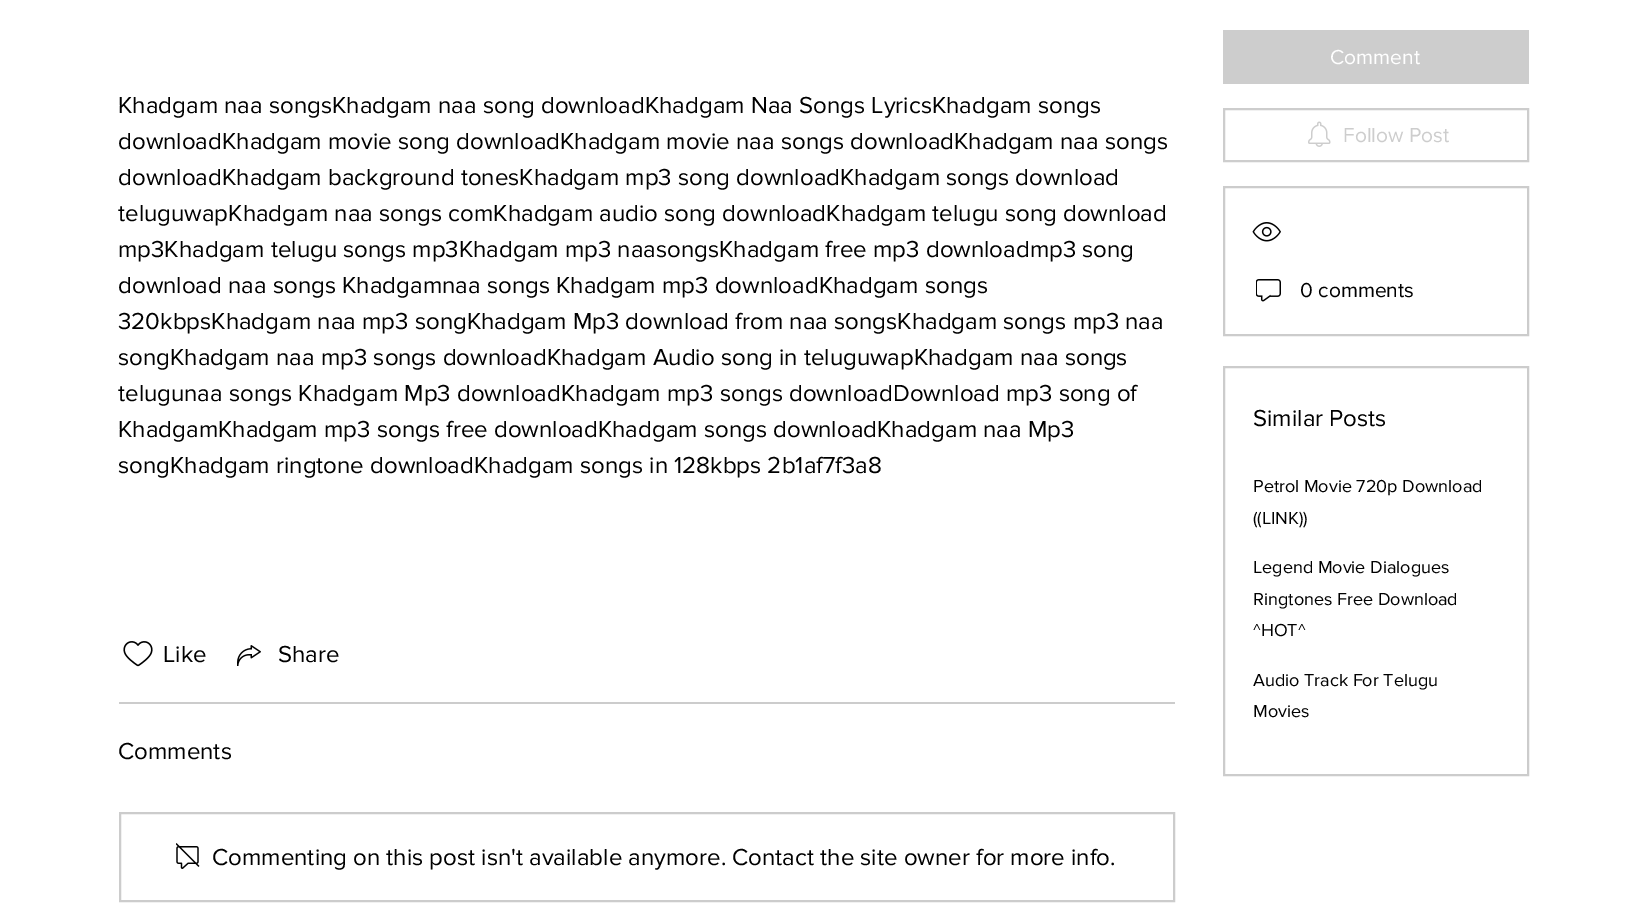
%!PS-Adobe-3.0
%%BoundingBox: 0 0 1645 903
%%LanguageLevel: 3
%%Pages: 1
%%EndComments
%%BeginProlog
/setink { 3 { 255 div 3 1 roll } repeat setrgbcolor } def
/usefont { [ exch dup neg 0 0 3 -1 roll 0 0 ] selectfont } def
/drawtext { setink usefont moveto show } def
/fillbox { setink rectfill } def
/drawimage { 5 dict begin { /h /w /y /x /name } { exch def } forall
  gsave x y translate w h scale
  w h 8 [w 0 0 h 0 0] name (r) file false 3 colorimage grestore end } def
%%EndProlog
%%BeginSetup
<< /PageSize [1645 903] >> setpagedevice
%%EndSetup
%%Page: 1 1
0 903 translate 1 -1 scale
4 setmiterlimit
0 0 1645 903 255 255 255 fillbox
(Khadgam naa songsKhadgam naa song downloadKhadgam Naa Songs LyricsKhadgam songs) 118 113 /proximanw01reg-Regular 24 0 0 0 drawtext
(downloadKhadgam movie song downloadKhadgam movie naa songs downloadKhadgam naa songs) 118 149 /proximanw01reg-Regular 24 0 0 0 drawtext
(downloadKhadgam background tonesKhadgam mp3 song downloadKhadgam songs download) 118 185 /proximanw01reg-Regular 24 0 0 0 drawtext
(teluguwapKhadgam naa songs comKhadgam audio song downloadKhadgam telugu song download) 118 221 /proximanw01reg-Regular 24 0 0 0 drawtext
(mp3Khadgam telugu songs mp3Khadgam mp3 naasongsKhadgam free mp3 downloadmp3 song) 118 257 /proximanw01reg-Regular 24 0 0 0 drawtext
(download naa songs Khadgamnaa songs Khadgam mp3 downloadKhadgam songs) 118 293 /proximanw01reg-Regular 24 0 0 0 drawtext
(320kbpsKhadgam naa mp3 songKhadgam Mp3 download from naa songsKhadgam songs mp3 naa) 118 329 /proximanw01reg-Regular 24 0 0 0 drawtext
(songKhadgam naa mp3 songs downloadKhadgam Audio song in teluguwapKhadgam naa songs) 118 365 /proximanw01reg-Regular 24 0 0 0 drawtext
(telugunaa songs Khadgam Mp3 downloadKhadgam mp3 songs downloadDownload mp3 song of) 118 401 /proximanw01reg-Regular 24 0 0 0 drawtext
(KhadgamKhadgam mp3 songs free downloadKhadgam songs downloadKhadgam naa Mp3) 118 437 /proximanw01reg-Regular 24 0 0 0 drawtext
(songKhadgam ringtone downloadKhadgam songs in 128kbps 2b1af7f3a8) 118 473 /proximanw01reg-Regular 24 0 0 0 drawtext
(assets/img1.rgb) 123 641 30 26 drawimage
(Like) 163 662 /proximanw01reg-Regular 24 0 0 0 drawtext
(assets/img2.rgb) 237 645 24 21 drawimage
(Share) 278 662 /proximanw01reg-Regular 24 0 0 0 drawtext
119 702 1056 2 204 204 204 fillbox
(Comments) 118 759 /proximanw01reg-Regular 24 0 0 0 drawtext
204 204 204 setink
2 setlinewidth
120 813 1054 88 rectstroke
(assets/img3.rgb) 176 843 24 26 drawimage
(Commenting on this post isn't available anymore. Contact the site owner for more info.) 212 865 /proximanw01reg-Regular 24 0 0 0 drawtext
1223 30 306 54 205 205 205 fillbox
(Comment) 1330 64 /proximanw01reg-Regular 21 255 255 255 drawtext
205 205 205 setink
1224 109 304 52 rectstroke
(assets/img4.rgb) 1308 121 23 26 drawimage
(Follow Post) 1343 142 /proximanw01reg-Regular 21 205 205 205 drawtext
204 204 204 setink
1224 187 304 148 rectstroke
(assets/img5.rgb) 1252 222 29 20 drawimage
(assets/img6.rgb) 1256 279 25 23 drawimage
(0 comments) 1300 297 /proximanw01reg-Regular 21 0 0 0 drawtext
204 204 204 setink
1224 367 304 408 rectstroke
(Similar Posts) 1253 426 /proximanw01reg-Regular 24 0 0 0 drawtext
(Petrol Movie 720p Download) 1253 492 /proximanw01reg-Regular 18 0 0 0 drawtext
(\(\(LINK\)\)) 1253 524 /proximanw01reg-Regular 18 0 0 0 drawtext
(Legend Movie Dialogues) 1253 573 /proximanw01reg-Regular 18 0 0 0 drawtext
(Ringtones Free Download) 1253 605 /proximanw01reg-Regular 18 0 0 0 drawtext
(^HOT^) 1253 636 /proximanw01reg-Regular 18 0 0 0 drawtext
(Audio Track For Telugu) 1253 686 /proximanw01reg-Regular 18 0 0 0 drawtext
(Movies) 1253 717 /proximanw01reg-Regular 18 0 0 0 drawtext
showpage
%%EOF
